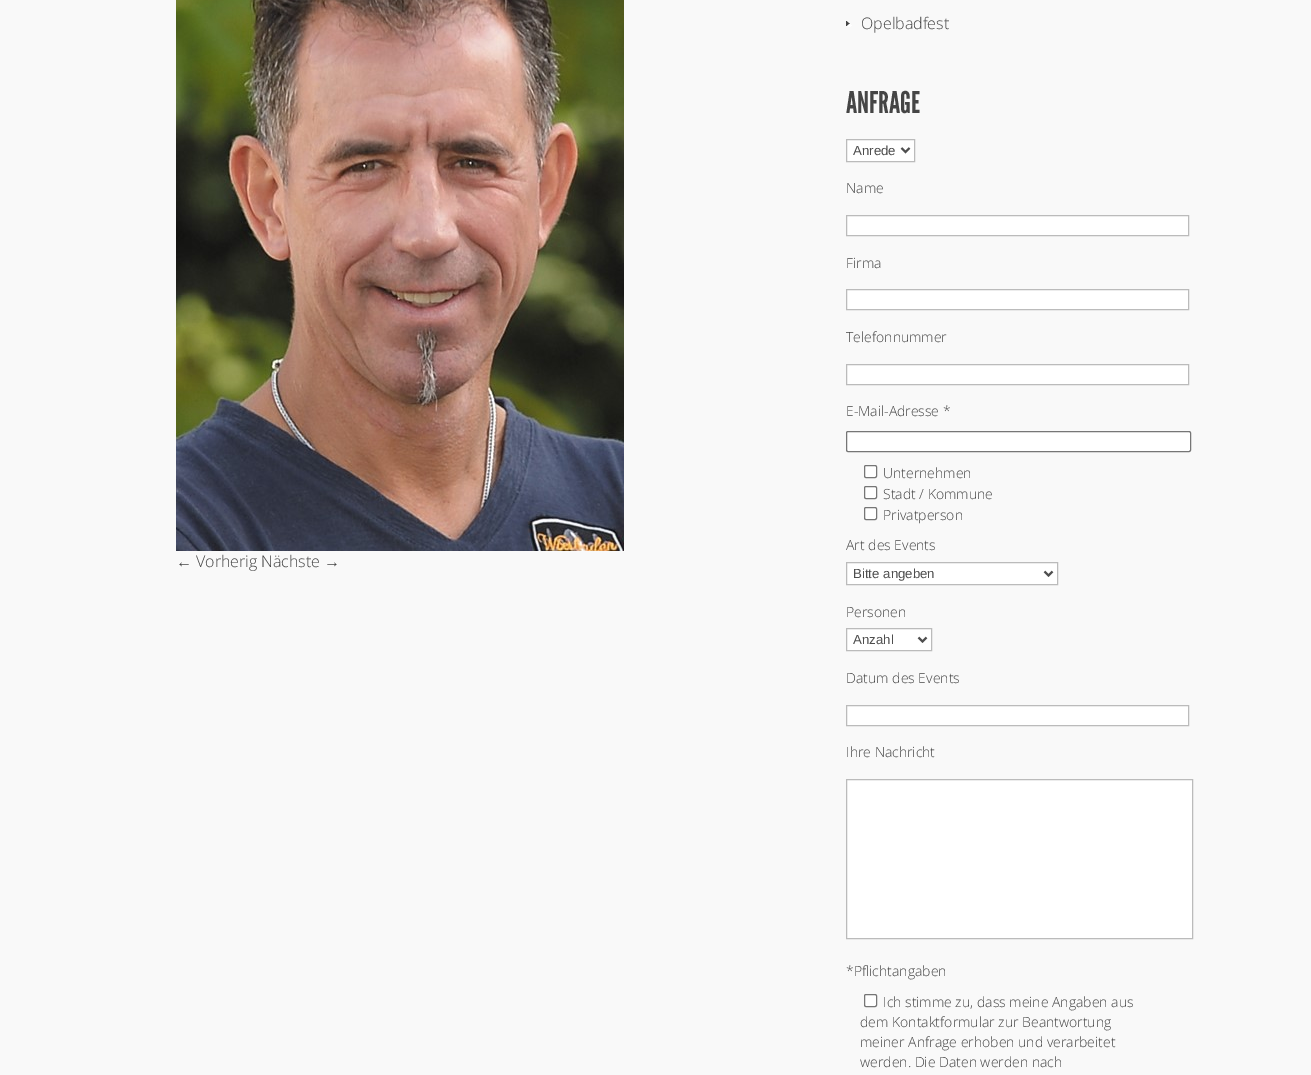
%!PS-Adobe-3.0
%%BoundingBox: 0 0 1311 1075
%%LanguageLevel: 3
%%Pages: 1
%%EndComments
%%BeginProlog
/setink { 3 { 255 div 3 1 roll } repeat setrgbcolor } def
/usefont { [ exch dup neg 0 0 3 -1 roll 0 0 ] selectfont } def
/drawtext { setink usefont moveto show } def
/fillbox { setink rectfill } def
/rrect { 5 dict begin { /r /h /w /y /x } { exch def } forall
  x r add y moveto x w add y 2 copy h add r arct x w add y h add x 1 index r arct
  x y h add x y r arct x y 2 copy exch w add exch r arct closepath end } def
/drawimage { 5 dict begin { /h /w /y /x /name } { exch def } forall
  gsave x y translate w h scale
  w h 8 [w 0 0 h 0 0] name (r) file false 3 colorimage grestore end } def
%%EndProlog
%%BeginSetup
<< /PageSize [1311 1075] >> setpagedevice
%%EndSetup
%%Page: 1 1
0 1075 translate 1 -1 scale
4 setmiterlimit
0 0 1311 1075 249 249 249 fillbox
(assets/img1.rgb) 176 0 448 551 drawimage
(←) 176 567 /LiberationSans-Regular 16 69 69 69 drawtext
(Vorherig Nächste) 196 567 /OpenSans-Light 16 69 69 69 drawtext
(→) 324 567 /LiberationSans-Regular 16 69 69 69 drawtext
(assets/img2.rgb) 846 21 6 6 drawimage
(Opelbadfest) 861 29 /OpenSans-Light 16 69 69 69 drawtext
(ANFRAGE) 846 113 /LeagueGothic-Regular 30 69 69 69 drawtext
255 255 255 setink
846.5 139.5 moveto 914.5 139.5 lineto 914.5 161.5 lineto 846.5 161.5 lineto closepath gsave fill grestore
187 187 187 setink
stroke
78 78 78 setink
2 setlinewidth
901.5 148 moveto 905.5 152 lineto 909.5 148 lineto stroke
(Anrede) 853 155 /LiberationSans-Regular 13.25 78 78 78 drawtext
(Name) 846 193 /OpenSans-Light 14 69 69 69 drawtext
255 255 255 setink
846.5 215.5 moveto 1188.5 215.5 lineto 1188.5 235.5 lineto 846.5 235.5 lineto closepath gsave fill grestore
187 187 187 setink
1 setlinewidth
stroke
(Firma) 846 268 /OpenSans-Light 14 69 69 69 drawtext
255 255 255 setink
846.5 289.5 moveto 1188.5 289.5 lineto 1188.5 309.5 lineto 846.5 309.5 lineto closepath gsave fill grestore
187 187 187 setink
stroke
(Telefonnummer) 846 342 /OpenSans-Light 14 69 69 69 drawtext
255 255 255 setink
846.5 364.5 moveto 1188.5 364.5 lineto 1188.5 384.5 lineto 846.5 384.5 lineto closepath gsave fill grestore
187 187 187 setink
stroke
(E-Mail-Adresse *) 846 416 /OpenSans-Light 14 69 69 69 drawtext
255 255 255 setink
846.5 431.5 344 20 1.5 rrect gsave fill grestore
118 118 118 setink
stroke
255 255 255 setink
864.5 465.5 12 12 1.5 rrect gsave fill grestore
118 118 118 setink
stroke
(Unternehmen) 883 478 /OpenSans-Light 14 69 69 69 drawtext
255 255 255 setink
864.5 486.5 12 12 1.5 rrect gsave fill grestore
118 118 118 setink
stroke
(Stadt / Kommune) 883 499 /OpenSans-Light 14 69 69 69 drawtext
255 255 255 setink
864.5 507.5 12 12 1.5 rrect gsave fill grestore
118 118 118 setink
stroke
(Privatperson) 883 520 /OpenSans-Light 14 69 69 69 drawtext
(Art des Events) 846 550 /OpenSans-Light 14 69 69 69 drawtext
255 255 255 setink
846.5 562.5 moveto 1057.5 562.5 lineto 1057.5 584.5 lineto 846.5 584.5 lineto closepath gsave fill grestore
187 187 187 setink
stroke
78 78 78 setink
2 setlinewidth
1044.5 571.5 moveto 1048.5 575.5 lineto 1052.5 571.5 lineto stroke
(Bitte angeben) 853 578 /LiberationSans-Regular 13.25 78 78 78 drawtext
(Personen) 846 617 /OpenSans-Light 14 69 69 69 drawtext
255 255 255 setink
846.5 628.5 moveto 931.5 628.5 lineto 931.5 650.5 lineto 846.5 650.5 lineto closepath gsave fill grestore
187 187 187 setink
1 setlinewidth
stroke
78 78 78 setink
2 setlinewidth
918.5 637.5 moveto 922.5 641.5 lineto 926.5 637.5 lineto stroke
(Anzahl) 853 644 /LiberationSans-Regular 13.25 78 78 78 drawtext
(Datum des Events) 846 683 /OpenSans-Light 14 69 69 69 drawtext
255 255 255 setink
846.5 705.5 moveto 1188.5 705.5 lineto 1188.5 725.5 lineto 846.5 725.5 lineto closepath gsave fill grestore
187 187 187 setink
1 setlinewidth
stroke
(Ihre Nachricht) 846 757 /OpenSans-Light 14 69 69 69 drawtext
255 255 255 setink
846.5 779.5 moveto 1192.5 779.5 lineto 1192.5 938.5 lineto 846.5 938.5 lineto closepath gsave fill grestore
187 187 187 setink
stroke
(*Pflichtangaben) 846 976 /OpenSans-Light 14 69 69 69 drawtext
255 255 255 setink
864.5 994.5 12 12 1.5 rrect gsave fill grestore
118 118 118 setink
stroke
(Ich stimme zu, dass meine Angaben aus) 883 1007 /OpenSans-Light 14 69 69 69 drawtext
(dem Kontaktformular zur Beantwortung) 860 1027 /OpenSans-Light 14 69 69 69 drawtext
(meiner Anfrage erhoben und verarbeitet) 860 1047 /OpenSans-Light 14 69 69 69 drawtext
(werden. Die Daten werden nach) 860 1067 /OpenSans-Light 14 69 69 69 drawtext
showpage
%%EOF
